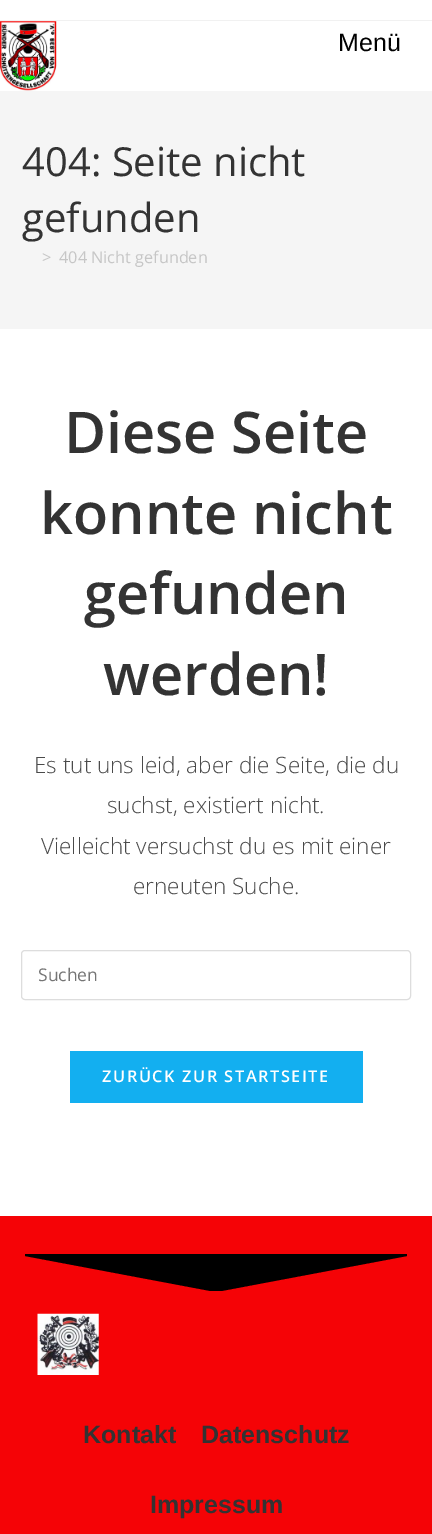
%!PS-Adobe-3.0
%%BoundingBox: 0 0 432 1534
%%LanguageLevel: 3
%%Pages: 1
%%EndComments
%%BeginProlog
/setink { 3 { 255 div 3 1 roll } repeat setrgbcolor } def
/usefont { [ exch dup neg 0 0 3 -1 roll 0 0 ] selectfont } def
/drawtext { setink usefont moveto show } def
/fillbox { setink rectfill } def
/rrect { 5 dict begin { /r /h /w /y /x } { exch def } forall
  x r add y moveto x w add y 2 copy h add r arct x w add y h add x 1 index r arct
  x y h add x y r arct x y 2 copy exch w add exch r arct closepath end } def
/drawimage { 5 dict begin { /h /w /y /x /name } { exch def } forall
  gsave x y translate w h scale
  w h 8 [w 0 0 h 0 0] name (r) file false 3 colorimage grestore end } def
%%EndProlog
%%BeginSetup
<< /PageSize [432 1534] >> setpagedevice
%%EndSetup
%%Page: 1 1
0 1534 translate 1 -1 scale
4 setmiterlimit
0 0 432 1534 255 255 255 fillbox
0 20 432 1 241 241 241 fillbox
(assets/img1.rgb) 0 21 57 70 drawimage
(Menü) 338 51 /LiberationSans-Regular 25 0 0 0 drawtext
0 91 432 238 245 245 245 fillbox
(404: Seite nicht) 22 176 /OpenSans-Regular 40 51 51 51 drawtext
(gefunden) 22 232 /OpenSans-Regular 40 51 51 51 drawtext
(>) 42 263 /OpenSans-Regular 16.25 198 198 198 drawtext
(404 Nicht gefunden) 59 263 /OpenSans-Regular 16.25 198 198 198 drawtext
(Diese Seite) 64 453 /OpenSans-SemiBold 57.5 51 51 51 drawtext
(konnte nicht) 40 534 /OpenSans-SemiBold 57.5 51 51 51 drawtext
(gefunden) 84 614 /OpenSans-SemiBold 57.5 51 51 51 drawtext
(werden!) 103 695 /OpenSans-SemiBold 57.5 51 51 51 drawtext
(Es tut uns leid, aber die Seite, die du) 34 773 /OpenSans-Light 22.5 74 74 74 drawtext
(suchst, existiert nicht.) 107 813 /OpenSans-Light 22.5 74 74 74 drawtext
(Vielleicht versuchst du es mit einer) 41 854 /OpenSans-Light 22.5 74 74 74 drawtext
(erneuten Suche.) 133 894 /OpenSans-Light 22.5 74 74 74 drawtext
221 221 221 setink
21.5 950.5 389 49 3.5 rrect stroke
(Suchen) 38 981 /OpenSans-Regular 17.5 117 117 117 drawtext
70 1051 293 52 19 175 240 fillbox
/OpenSans-SemiBold 16.25 usefont
255 255 255 setink
102 1082 moveto 1.6 0 (ZURÜCK ZUR STARTSEITE) ashow
0 1216 432 318 245 3 6 fillbox
gsave
25 1254 383 37 rectclip
0 0 0 setink
216 1292 moveto 25 1256 lineto 25 1254 lineto 407 1254 lineto 407 1256 lineto closepath fill
grestore
(assets/img2.rgb) 37 1313 62 62 drawimage
(Kontakt) 83 1443 /LiberationSans-Bold 25 51 51 51 drawtext
(Datenschutz) 201 1443 /LiberationSans-Bold 25 51 51 51 drawtext
(Impressum) 150 1513 /LiberationSans-Bold 25 51 51 51 drawtext
showpage
%%EOF
